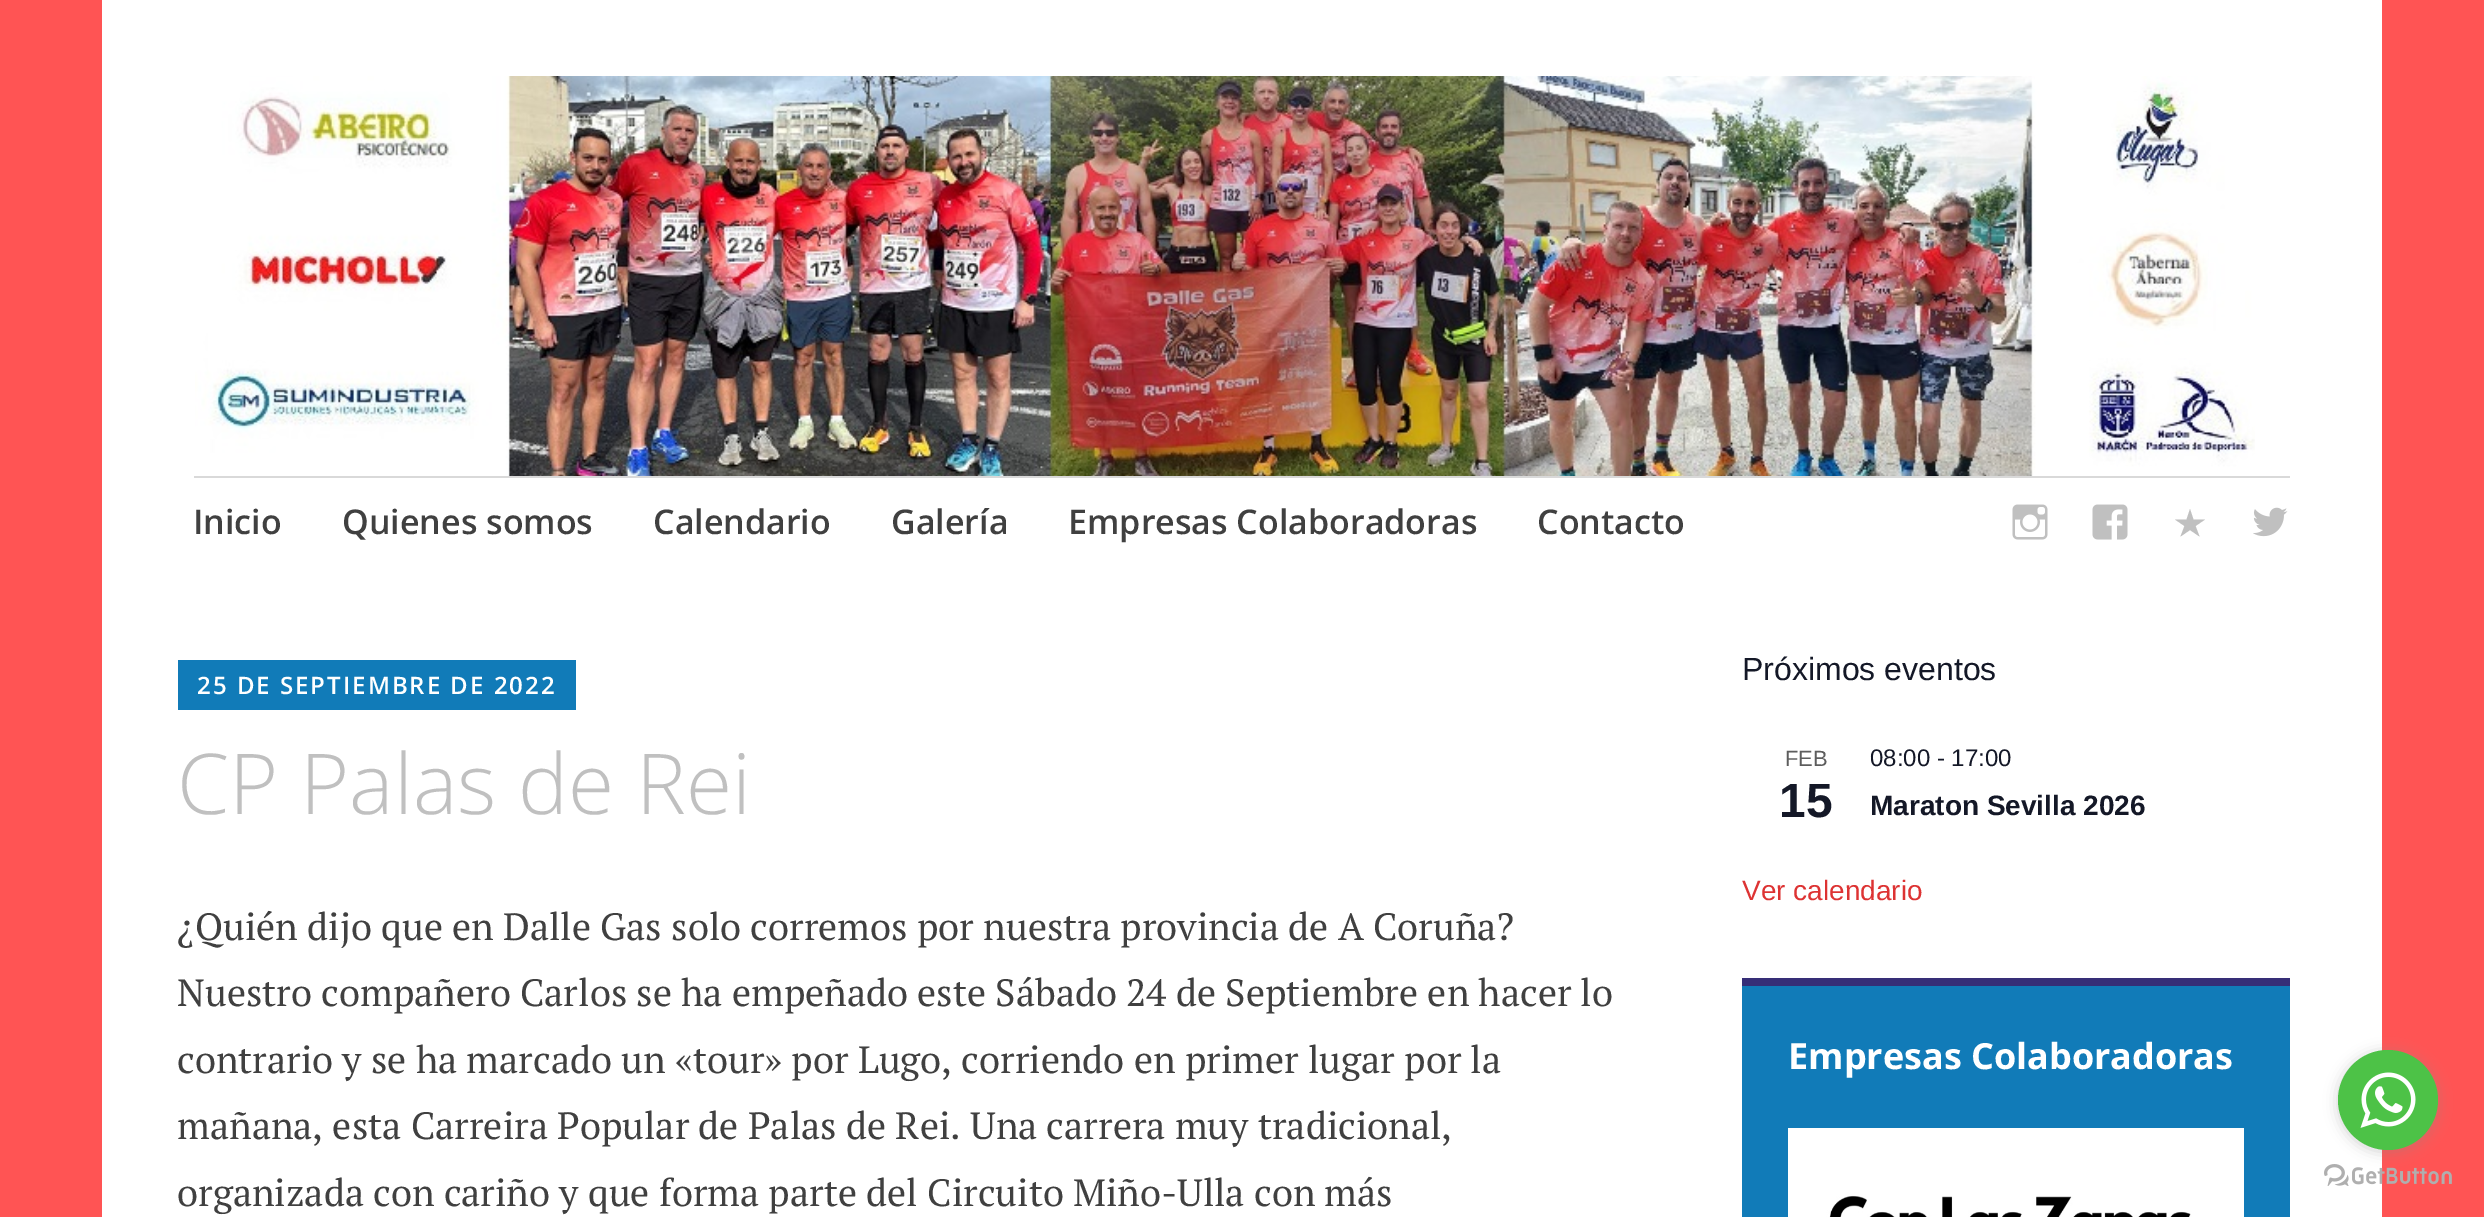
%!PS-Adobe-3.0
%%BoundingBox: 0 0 2484 1217
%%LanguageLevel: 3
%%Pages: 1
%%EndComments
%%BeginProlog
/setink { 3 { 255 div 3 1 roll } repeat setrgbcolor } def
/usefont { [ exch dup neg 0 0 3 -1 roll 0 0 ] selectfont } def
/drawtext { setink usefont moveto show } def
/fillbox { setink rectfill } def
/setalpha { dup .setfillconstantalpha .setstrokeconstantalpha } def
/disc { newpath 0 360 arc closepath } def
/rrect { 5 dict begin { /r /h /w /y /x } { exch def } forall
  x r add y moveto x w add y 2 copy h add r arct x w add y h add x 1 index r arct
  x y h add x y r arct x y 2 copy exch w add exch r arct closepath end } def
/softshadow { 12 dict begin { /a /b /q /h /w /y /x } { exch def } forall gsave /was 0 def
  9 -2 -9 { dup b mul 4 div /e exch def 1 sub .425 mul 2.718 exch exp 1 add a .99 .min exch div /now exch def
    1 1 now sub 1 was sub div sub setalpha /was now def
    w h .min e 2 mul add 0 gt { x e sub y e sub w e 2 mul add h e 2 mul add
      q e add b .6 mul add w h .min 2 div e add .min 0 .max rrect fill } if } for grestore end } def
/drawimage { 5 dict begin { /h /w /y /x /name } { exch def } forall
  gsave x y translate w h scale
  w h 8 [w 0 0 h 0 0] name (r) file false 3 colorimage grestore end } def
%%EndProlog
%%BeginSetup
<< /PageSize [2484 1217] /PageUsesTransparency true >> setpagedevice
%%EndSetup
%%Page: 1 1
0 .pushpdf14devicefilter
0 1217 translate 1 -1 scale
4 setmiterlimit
0 0 2484 1217 255 84 84 fillbox
102 0 2280 1217 255 255 255 fillbox
(assets/img1.rgb) 195 76 2060 400 drawimage
194 476 2096 2 217 217 217 fillbox
(Inicio) 193 534 /OpenSans-SemiBold 34 64 64 64 drawtext
(Quienes somos) 342 534 /OpenSans-SemiBold 34 64 64 64 drawtext
(Calendario) 653 534 /OpenSans-SemiBold 34 64 64 64 drawtext
(Galería) 891 534 /OpenSans-SemiBold 34 64 64 64 drawtext
(Empresas Colaboradoras) 1068 534 /OpenSans-SemiBold 34 64 64 64 drawtext
(Contacto) 1537 534 /OpenSans-SemiBold 34 64 64 64 drawtext
(assets/img2.rgb) 2012 504 36 36 drawimage
(assets/img3.rgb) 2092 504 36 36 drawimage
192 192 192 setink
2205 519.5 moveto 2195.5 526 lineto 2199.5 536.5 lineto 2190 530 lineto 2180.5 536.5 lineto 2184.5 526 lineto 2175 519.5 lineto 2186.5 519.5 lineto 2190 509 lineto 2193.5 519.5 lineto closepath fill
(assets/img4.rgb) 2253 507 35 30 drawimage
178 660 398 50 17 123 184 fillbox
/OpenSans-SemiBold 24 usefont
255 255 255 setink
197 694 moveto 2 0 (25 DE SEPTIEMBRE DE 2022) ashow
(CP Palas de Rei) 177 814 /OpenSans-Light 84 192 192 192 drawtext
(¿Quién dijo que en Dalle Gas solo corremos por nuestra provincia de A Coruña?) 177 940 /PTSerif-Regular 38 64 64 64 drawtext
(Nuestro compañero Carlos se ha empeñado este Sábado 24 de Septiembre en hacer lo) 177 1006 /PTSerif-Regular 38 64 64 64 drawtext
(contrario y se ha marcado un «tour» por Lugo, corriendo en primer lugar por la) 177 1073 /PTSerif-Regular 38 64 64 64 drawtext
(mañana, esta Carreira Popular de Palas de Rei. Una carrera muy tradicional,) 177 1139 /PTSerif-Regular 38 64 64 64 drawtext
(organizada con cariño y que forma parte del Circuito Miño-Ulla con más) 177 1206 /PTSerif-Regular 38 64 64 64 drawtext
(Próximos eventos) 1742 680 /LiberationSans-Regular 32 20 24 39 drawtext
(FEB) 1785 766 /LiberationSans-Regular 22 93 93 93 drawtext
(15) 1779 817 /LiberationSans-Bold 48 20 24 39 drawtext
(08:00 - 17:00) 1870 766 /LiberationSans-Regular 24 20 24 39 drawtext
(Maraton Sevilla 2026) 1870 815 /LiberationSans-Bold 28 20 24 39 drawtext
(Ver calendario) 1742 900 /LiberationSans-Regular 28 221 51 51 drawtext
1742 986 548 231 17 123 184 fillbox
1742 978 548 8 54 46 119 fillbox
(Empresas Colaboradoras) 1788 1069 /OpenSans-Bold 36 255 255 255 drawtext
(assets/img5.rgb) 1788 1128 456 89 drawimage
(assets/img7.rgb) 2324 1164 128 22 drawimage
136 136 136 setink
2338 1052 100 100 50 7 0.4 softshadow
77 194 71 setink
2388 1100 50 disc fill
(assets/img6.rgb) 2360 1072 56 56 drawimage
.poppdf14devicefilter showpage
%%EOF
